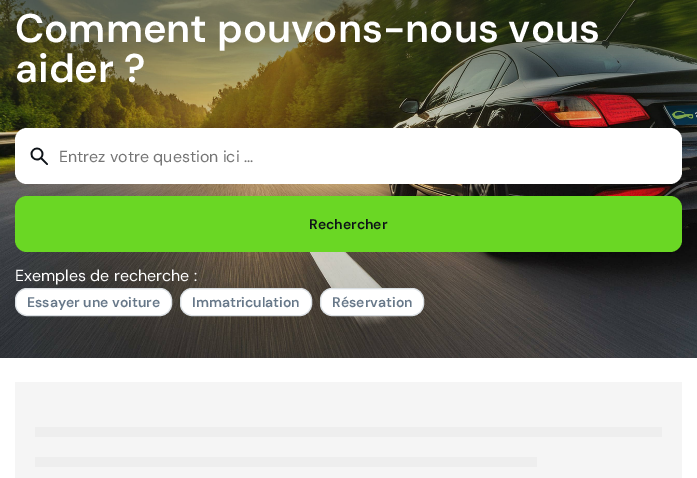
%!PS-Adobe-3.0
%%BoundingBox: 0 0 697 478
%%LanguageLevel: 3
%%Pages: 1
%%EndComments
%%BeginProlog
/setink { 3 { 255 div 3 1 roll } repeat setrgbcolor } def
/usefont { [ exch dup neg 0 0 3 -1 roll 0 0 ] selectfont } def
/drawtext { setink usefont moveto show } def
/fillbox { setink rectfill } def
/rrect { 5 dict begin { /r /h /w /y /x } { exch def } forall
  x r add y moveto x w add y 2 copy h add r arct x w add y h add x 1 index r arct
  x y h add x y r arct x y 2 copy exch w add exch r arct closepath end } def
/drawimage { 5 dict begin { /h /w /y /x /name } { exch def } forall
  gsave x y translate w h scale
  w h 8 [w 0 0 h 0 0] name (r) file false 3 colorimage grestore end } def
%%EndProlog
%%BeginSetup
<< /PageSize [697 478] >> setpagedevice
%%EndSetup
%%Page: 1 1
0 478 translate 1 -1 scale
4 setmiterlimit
0 0 697 478 255 255 255 fillbox
(assets/img1.rgb) 0 0 697 358 drawimage
(Comment pouvons-nous vous) 15 42 /DMSans-SemiBold 40 255 255 255 drawtext
(aider ?) 15 82 /DMSans-SemiBold 40 255 255 255 drawtext
15 128 667 56 12 rrect fill
(assets/img2.rgb) 30 147 18 18 drawimage
(Entrez votre question ici ...) 59 162 /DMSans-Regular 16 117 117 117 drawtext
106 215 36 setink
15 196 667 56 12 rrect fill
(Rechercher) 309 229 /DMSans-SemiBold 14 14 19 24 drawtext
(Exemples de recherche :) 15 281 /DMSans-Regular 16 255 255 255 drawtext
15.5 288.5 156 27 11.5 rrect gsave fill grestore
217 222 226 setink
stroke
(Essayer une voiture) 27 307 /DMSans-SemiBold 14 103 120 137 drawtext
255 255 255 setink
180.5 288.5 131 27 11.5 rrect gsave fill grestore
217 222 226 setink
stroke
(Immatriculation) 192 307 /DMSans-SemiBold 14 103 120 137 drawtext
255 255 255 setink
320.5 288.5 103 27 11.5 rrect gsave fill grestore
217 222 226 setink
stroke
(Réservation) 332 307 /DMSans-SemiBold 14 103 120 137 drawtext
15 382 667 96 245 245 245 fillbox
gsave 35 427 627 10 3 rrect clip newpath
<< /ShadingType 2 /ColorSpace /DeviceRGB /Coords [-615 432 685 432] /Extend [true true] /Function << /FunctionType 3 /Domain [0 1] /Functions [<< /FunctionType 2 /Domain [0 1] /C0 [0.933 0.933 0.933] /C1 [0.933 0.933 0.933] /N 1 >> << /FunctionType 2 /Domain [0 1] /C0 [0.933 0.933 0.933] /C1 [0.867 0.867 0.867] /N 1 >> << /FunctionType 2 /Domain [0 1] /C0 [0.867 0.867 0.867] /C1 [0.933 0.933 0.933] /N 1 >> << /FunctionType 2 /Domain [0 1] /C0 [0.933 0.933 0.933] /C1 [0.933 0.933 0.933] /N 1 >>] /Bounds [0.02 0.18 0.33] /Encode [0 1 0 1 0 1 0 1] >> >> shfill grestore
gsave 35 457 502 10 3 rrect clip newpath
<< /ShadingType 2 /ColorSpace /DeviceRGB /Coords [-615 462 685 462] /Extend [true true] /Function << /FunctionType 3 /Domain [0 1] /Functions [<< /FunctionType 2 /Domain [0 1] /C0 [0.933 0.933 0.933] /C1 [0.933 0.933 0.933] /N 1 >> << /FunctionType 2 /Domain [0 1] /C0 [0.933 0.933 0.933] /C1 [0.867 0.867 0.867] /N 1 >> << /FunctionType 2 /Domain [0 1] /C0 [0.867 0.867 0.867] /C1 [0.933 0.933 0.933] /N 1 >> << /FunctionType 2 /Domain [0 1] /C0 [0.933 0.933 0.933] /C1 [0.933 0.933 0.933] /N 1 >>] /Bounds [0.02 0.18 0.33] /Encode [0 1 0 1 0 1 0 1] >> >> shfill grestore
showpage
%%EOF
